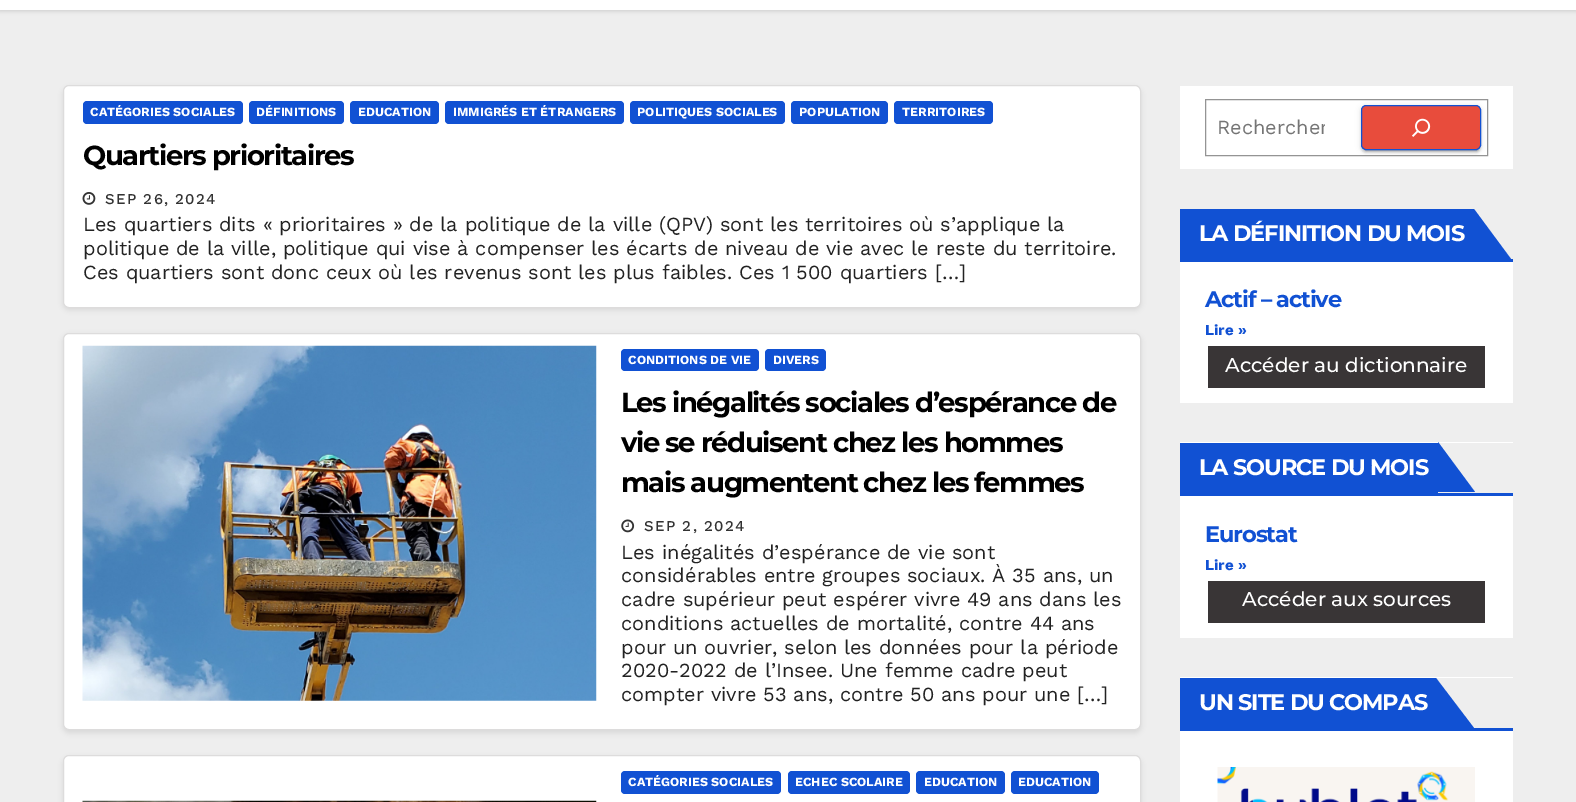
%!PS-Adobe-3.0
%%BoundingBox: 0 0 1576 802
%%LanguageLevel: 3
%%Pages: 1
%%EndComments
%%BeginProlog
/setink { 3 { 255 div 3 1 roll } repeat setrgbcolor } def
/usefont { [ exch dup neg 0 0 3 -1 roll 0 0 ] selectfont } def
/drawtext { setink usefont moveto show } def
/fillbox { setink rectfill } def
/setalpha { dup .setfillconstantalpha .setstrokeconstantalpha } def
/rrect { 5 dict begin { /r /h /w /y /x } { exch def } forall
  x r add y moveto x w add y 2 copy h add r arct x w add y h add x 1 index r arct
  x y h add x y r arct x y 2 copy exch w add exch r arct closepath end } def
/softshadow { 12 dict begin { /a /b /q /h /w /y /x } { exch def } forall gsave /was 0 def
  9 -2 -9 { dup b mul 4 div /e exch def 1 sub .425 mul 2.718 exch exp 1 add a .99 .min exch div /now exch def
    1 1 now sub 1 was sub div sub setalpha /was now def
    w h .min e 2 mul add 0 gt { x e sub y e sub w e 2 mul add h e 2 mul add
      q e add b .6 mul add w h .min 2 div e add .min 0 .max rrect fill } if } for grestore end } def
/drawimage { 5 dict begin { /h /w /y /x /name } { exch def } forall
  gsave x y translate w h scale
  w h 8 [w 0 0 h 0 0] name (r) file false 3 colorimage grestore end } def
%%EndProlog
%%BeginSetup
<< /PageSize [1576 802] /PageUsesTransparency true >> setpagedevice
%%EndSetup
%%Page: 1 1
0 .pushpdf14devicefilter
0 802 translate 1 -1 scale
4 setmiterlimit
0 0 1576 802 238 238 238 fillbox
0 0 0 setink
0 -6 1576 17 0 2 0.15 softshadow
0 0 1576 10 255 255 255 fillbox
0 0 0 setink
63 88 1078 222 6 2.5 0.08 softshadow
255 255 255 setink
63.5 85.5 1077 222 5.5 rrect gsave fill grestore
221 220 220 setink
stroke
17 81 211 setink
83 101 160 23 4 rrect fill
(CATÉGORIES SOCIALES) 90 116 /WorkSans-Bold 12.5 255 255 255 drawtext
17 81 211 setink
249 101 95 23 4 rrect fill
(DÉFINITIONS) 256 116 /WorkSans-Bold 12.5 255 255 255 drawtext
17 81 211 setink
350 101 89 23 4 rrect fill
(EDUCATION) 358 116 /WorkSans-Bold 12.5 255 255 255 drawtext
17 81 211 setink
445 101 179 23 4 rrect fill
(IMMIGRÉS ET ÉTRANGERS) 453 116 /WorkSans-Bold 12.5 255 255 255 drawtext
17 81 211 setink
630 101 155 23 4 rrect fill
(POLITIQUES SOCIALES) 637 116 /WorkSans-Bold 12.5 255 255 255 drawtext
17 81 211 setink
791 101 97 23 4 rrect fill
(POPULATION) 799 116 /WorkSans-Bold 12.5 255 255 255 drawtext
17 81 211 setink
894 101 99 23 4 rrect fill
(TERRITOIRES) 902 116 /WorkSans-Bold 12.5 255 255 255 drawtext
/Montserrat-Bold 27.5 usefont
0 0 0 setink
83 165 moveto -1.4 0 (Quartiers prioritaires) ashow
(assets/img1.rgb) 82 192 14 13 drawimage
/WorkSans-Medium 15 usefont
51 51 51 setink
105 204 moveto 1.25 0 (SEP 26, 2024) ashow
(Les quartiers dits « prioritaires » de la politique de la ville \(QPV\) sont les territoires où s’applique la) 83 231 /WorkSans-Regular 20 34 34 34 drawtext
(politique de la ville, politique qui vise à compenser les écarts de niveau de vie avec le reste du territoire.) 83 255 /WorkSans-Regular 20 34 34 34 drawtext
(Ces quartiers sont donc ceux où les revenus sont les plus faibles. Ces 1 500 quartiers […]) 83 279 /WorkSans-Regular 20 34 34 34 drawtext
0 0 0 setink
63 335 1078 398 6 2.5 0.08 softshadow
255 255 255 setink
63.5 333.5 1077 396 5.5 rrect gsave fill grestore
221 220 220 setink
stroke
(assets/img2.rgb) 82 345 515 356 drawimage
17 81 211 setink
621 349 138 22 4 rrect fill
(CONDITIONS DE VIE) 628 364 /WorkSans-Bold 12.5 255 255 255 drawtext
17 81 211 setink
765 349 61 22 4 rrect fill
(DIVERS) 773 364 /WorkSans-Bold 12.5 255 255 255 drawtext
/Montserrat-Bold 27.5 usefont
0 0 0 setink
621 412 moveto -1.4 0 (Les inégalités sociales d’espérance de) ashow
621 452 moveto -1.4 0 (vie se réduisent chez les hommes) ashow
621 492 moveto -1.4 0 (mais augmentent chez les femmes) ashow
(assets/img3.rgb) 621 519 14 14 drawimage
/WorkSans-Medium 15 usefont
51 51 51 setink
644 531 moveto 1.25 0 (SEP 2, 2024) ashow
(Les inégalités d’espérance de vie sont) 621 559 /WorkSans-Regular 20 34 34 34 drawtext
(considérables entre groupes sociaux. À 35 ans, un) 621 582 /WorkSans-Regular 20 34 34 34 drawtext
(cadre supérieur peut espérer vivre 49 ans dans les) 621 606 /WorkSans-Regular 20 34 34 34 drawtext
(conditions actuelles de mortalité, contre 44 ans) 621 630 /WorkSans-Regular 20 34 34 34 drawtext
(pour un ouvrier, selon les données pour la période) 621 654 /WorkSans-Regular 20 34 34 34 drawtext
(2020-2022 de l’Insee. Une femme cadre peut) 621 677 /WorkSans-Regular 20 34 34 34 drawtext
(compter vivre 53 ans, contre 50 ans pour une […]) 621 701 /WorkSans-Regular 20 34 34 34 drawtext
0 0 0 setink
63 758 1078 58 6 2.5 0.08 softshadow
255 255 255 setink
63.5 755.5 1077 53 5.5 rrect gsave fill grestore
221 220 220 setink
stroke
17 81 211 setink
621 771 160 23 4 rrect fill
(CATÉGORIES SOCIALES) 628 786 /WorkSans-Bold 12.5 255 255 255 drawtext
17 81 211 setink
788 771 122 23 4 rrect fill
(ECHEC SCOLAIRE) 795 786 /WorkSans-Bold 12.5 255 255 255 drawtext
17 81 211 setink
916 771 89 23 4 rrect fill
(EDUCATION) 924 786 /WorkSans-Bold 12.5 255 255 255 drawtext
17 81 211 setink
1011 771 88 23 4 rrect fill
(EDUCATION) 1018 786 /WorkSans-Bold 12.5 255 255 255 drawtext
(assets/img4.rgb) 82 800 515 2 drawimage
1180 86 333 83 255 255 255 fillbox
148 148 148 setink
1205.5 99.5 282 56 rectstroke
gsave
1216 115 109 24 rectclip
(Rechercher) 1217 134 /WorkSans-Regular 20 117 117 117 drawtext
grestore
0 0 0 setink
1361 106 120 45 5 3 0.12 softshadow
1364 111 115 40 2.5 0.5 0.2 softshadow
1361 108 120 45 5 1 0.14 softshadow
232 76 60 setink
1361.5 105.5 119 44 4.5 rrect gsave fill grestore
17 81 211 setink
stroke
(assets/img5.rgb) 1412 118 19 19 drawimage
1180 262 333 141 255 255 255 fillbox
1180 259 333 3 17 81 211 fillbox
1180 209 294 50 17 81 211 fillbox
/Montserrat-Bold 22.5 usefont
255 255 255 setink
1199 241 moveto -1.1 0 (LA DÉFINITION DU MOIS) ashow
17 81 211 setink
1474 259 moveto 1474 209 lineto 1511 259 lineto closepath fill
1205 307 moveto -1.1 0 (Actif – active) ashow
(Lire ») 1205 335 /WorkSans-Bold 15 17 81 211 drawtext
1208 346 277 42 57 53 54 fillbox
(Accéder au dictionnaire) 1225 372 /Montserrat-Medium 20 255 255 255 drawtext
1180 442 333 196 255 255 255 fillbox
1438 443 75 50 238 238 238 fillbox
1180 493 333 3 17 81 211 fillbox
1180 443 258 50 17 81 211 fillbox
/Montserrat-Bold 22.5 usefont
255 255 255 setink
1199 475 moveto -1.1 0 (LA SOURCE DU MOIS) ashow
17 81 211 setink
1438 492 moveto 1438 442 lineto 1475 492 lineto closepath fill
1205 542 moveto -1.1 0 (Eurostat) ashow
(Lire ») 1205 570 /WorkSans-Bold 15 17 81 211 drawtext
1208 581 277 42 57 53 54 fillbox
(Accéder aux sources) 1242 606 /Montserrat-Medium 20 255 255 255 drawtext
1180 677 333 125 255 255 255 fillbox
1436 678 77 50 238 238 238 fillbox
1180 728 333 3 17 81 211 fillbox
1180 678 256 50 17 81 211 fillbox
/Montserrat-Bold 22.5 usefont
255 255 255 setink
1199 710 moveto -1.1 0 (UN SITE DU COMPAS) ashow
17 81 211 setink
1436 728 moveto 1436 678 lineto 1474 728 lineto closepath fill
(assets/img6.rgb) 1217 767 258 35 drawimage
.poppdf14devicefilter showpage
%%EOF
